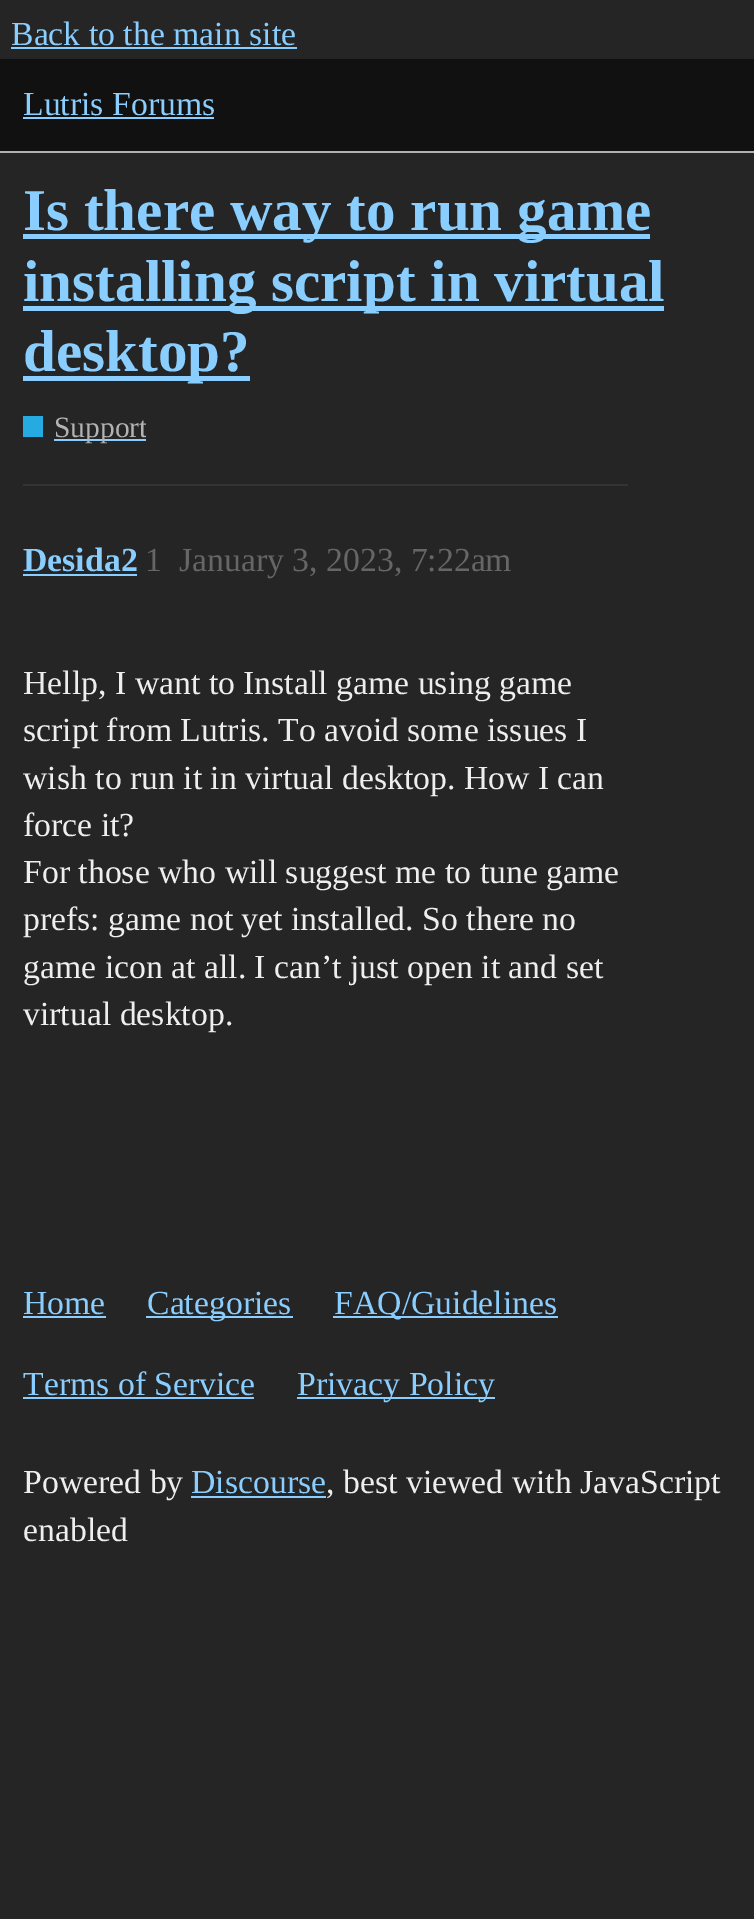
%!PS-Adobe-3.0
%%BoundingBox: 0 0 754 1919
%%LanguageLevel: 3
%%Pages: 1
%%EndComments
%%BeginProlog
/setink { 3 { 255 div 3 1 roll } repeat setrgbcolor } def
/usefont { [ exch dup neg 0 0 3 -1 roll 0 0 ] selectfont } def
/drawtext { setink usefont moveto show } def
/fillbox { setink rectfill } def
%%EndProlog
%%BeginSetup
<< /PageSize [754 1919] >> setpagedevice
%%EndSetup
%%Page: 1 1
0 1919 translate 1 -1 scale
4 setmiterlimit
0 0 754 1919 37 37 37 fillbox
(Back to the main site) 11 45 /LiberationSerif-Regular 33.75 138 206 255 drawtext
11 47 286 2 138 206 255 fillbox
0 59 754 92 17 17 17 fillbox
0 151 754 2 177 177 177 fillbox
(Lutris Forums) 23 115 /LiberationSerif-Regular 33.75 138 206 255 drawtext
23 117 191 2 138 206 255 fillbox
23 234 627 5 138 206 255 fillbox
(Is there way to run game) 23 230 /LiberationSerif-Bold 59.1 138 206 255 drawtext
23 306 641 5 138 206 255 fillbox
(installing script in virtual) 23 301 /LiberationSerif-Bold 59.1 138 206 255 drawtext
23 376 227 5 138 206 255 fillbox
(desktop?) 23 371 /LiberationSerif-Bold 59.1 138 206 255 drawtext
23 416 20 21 37 170 226 fillbox
54 439 92 2 138 206 255 fillbox
gsave
54 407 92 41 rectclip
(Support) 54 437 /LiberationSerif-Regular 29.5 179 179 179 drawtext
grestore
23 484 605 2 52 52 52 fillbox
(Desida2) 23 571 /LiberationSerif-Bold 33.75 138 206 255 drawtext
23 574 114 2 138 206 255 fillbox
(1) 145 571 /LiberationSerif-Regular 33.75 102 102 102 drawtext
(January 3, 2023, 7:22am) 179 571 /LiberationSerif-Regular 33.75 102 102 102 drawtext
(Hellp, I want to Install game using game) 23 694 /LiberationSerif-Regular 33.75 238 238 238 drawtext
(script from Lutris. To avoid some issues I) 23 741 /LiberationSerif-Regular 33.75 238 238 238 drawtext
(wish to run it in virtual desktop. How I can) 23 789 /LiberationSerif-Regular 33.75 238 238 238 drawtext
(force it?) 23 836 /LiberationSerif-Regular 33.75 238 238 238 drawtext
(For those who will suggest me to tune game) 23 883 /LiberationSerif-Regular 33.75 238 238 238 drawtext
(prefs: game not yet installed. So there no) 23 930 /LiberationSerif-Regular 33.75 238 238 238 drawtext
(game icon at all. I can’t just open it and set) 23 978 /LiberationSerif-Regular 33.75 238 238 238 drawtext
(virtual desktop.) 23 1025 /LiberationSerif-Regular 33.75 238 238 238 drawtext
(Home) 23 1314 /LiberationSerif-Regular 33.75 138 206 255 drawtext
23 1316 83 2 138 206 255 fillbox
146 1316 147 2 138 206 255 fillbox
(Categories) 147 1314 /LiberationSerif-Regular 33.75 138 206 255 drawtext
333 1316 225 2 138 206 255 fillbox
(FAQ/Guidelines) 334 1314 /LiberationSerif-Regular 33.75 138 206 255 drawtext
(Terms of Service) 23 1395 /LiberationSerif-Regular 33.75 138 206 255 drawtext
23 1397 231 2 138 206 255 fillbox
297 1397 198 2 138 206 255 fillbox
(Privacy Policy) 297 1395 /LiberationSerif-Regular 33.75 138 206 255 drawtext
(Powered by) 23 1493 /LiberationSerif-Regular 33.75 238 238 238 drawtext
(Discourse) 191 1493 /LiberationSerif-Regular 33.75 138 206 255 drawtext
191 1496 135 2 138 206 255 fillbox
(, best viewed with JavaScript) 326 1493 /LiberationSerif-Regular 33.75 238 238 238 drawtext
(enabled) 23 1541 /LiberationSerif-Regular 33.75 238 238 238 drawtext
showpage
%%EOF
